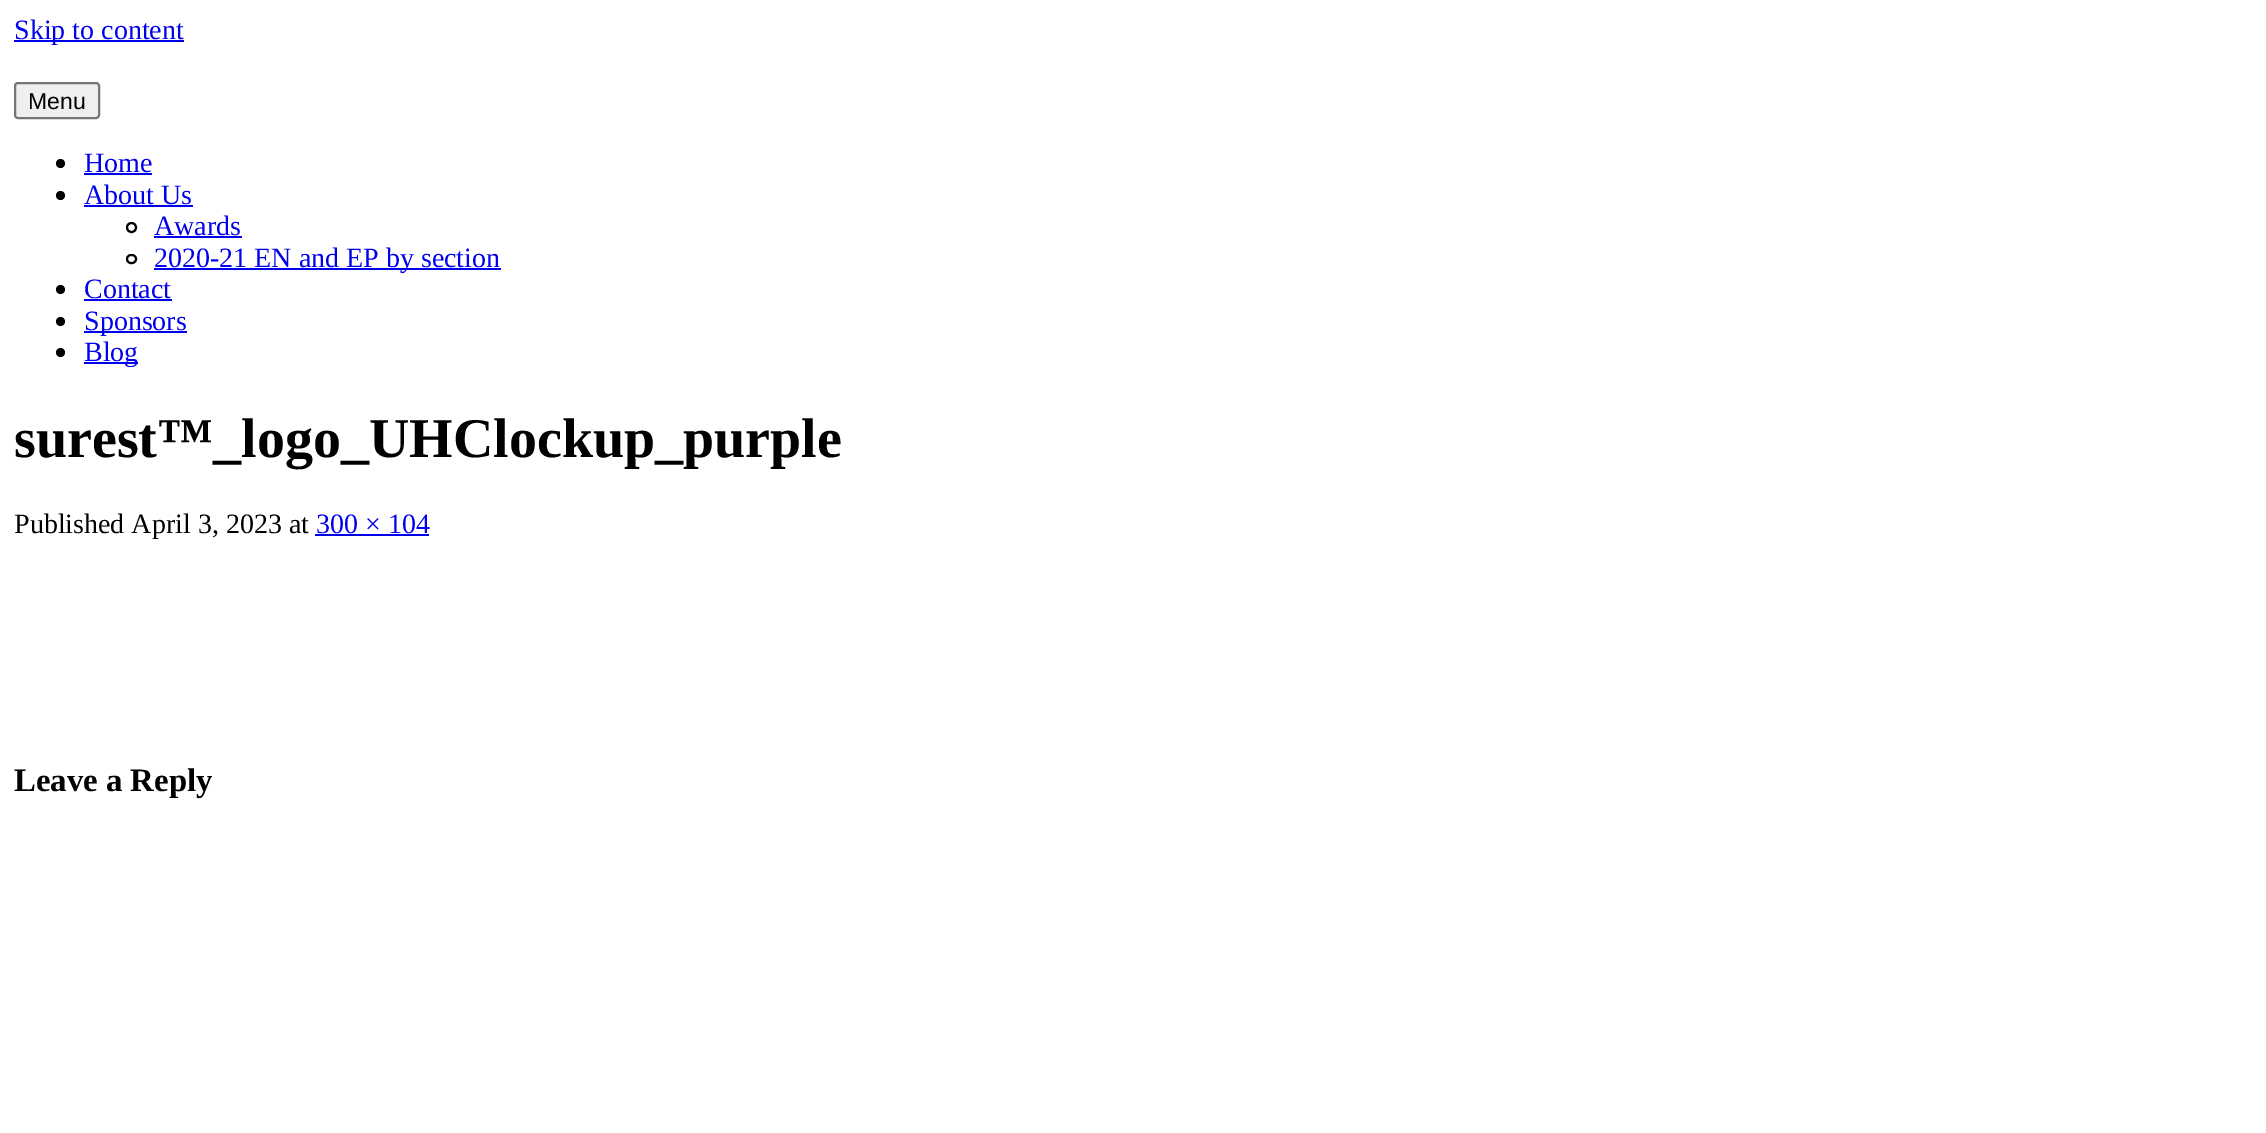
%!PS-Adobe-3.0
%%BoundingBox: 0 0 2266 1133
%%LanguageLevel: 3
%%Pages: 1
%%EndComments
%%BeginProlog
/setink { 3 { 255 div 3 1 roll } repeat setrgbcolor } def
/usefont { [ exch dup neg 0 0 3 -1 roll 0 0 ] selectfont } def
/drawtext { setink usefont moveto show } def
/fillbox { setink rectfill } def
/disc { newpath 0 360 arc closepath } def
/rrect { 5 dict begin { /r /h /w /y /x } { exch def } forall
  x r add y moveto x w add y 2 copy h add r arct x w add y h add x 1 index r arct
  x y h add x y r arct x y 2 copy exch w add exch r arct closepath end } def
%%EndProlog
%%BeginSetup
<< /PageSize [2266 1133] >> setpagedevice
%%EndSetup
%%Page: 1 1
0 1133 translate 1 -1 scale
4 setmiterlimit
0 0 2266 1133 255 255 255 fillbox
14 40 170 2 0 0 238 fillbox
(Skip to content) 14 39 /LiberationSerif-Regular 28 0 0 238 drawtext
239 239 239 setink
15 83 84 35 3 rrect gsave fill grestore
118 118 118 setink
2 setlinewidth
stroke
(Menu) 28 109 /LiberationSans-Regular 23 0 0 0 drawtext
60.5 163.5 4.5 disc fill
(Home) 84 172 /LiberationSerif-Regular 28 0 0 238 drawtext
84 173 68 2 0 0 238 fillbox
0 0 0 setink
60.5 195.5 4.5 disc fill
(About Us) 84 204 /LiberationSerif-Regular 28 0 0 238 drawtext
84 205 109 2 0 0 238 fillbox
0 0 0 setink
131.5 227.5 4.5 disc stroke
(Awards) 154 235 /LiberationSerif-Regular 28 0 0 238 drawtext
154 236 88 2 0 0 238 fillbox
0 0 0 setink
127 255 9 8 4 rrect stroke
154 268 347 2 0 0 238 fillbox
(2020-21 EN and EP by section) 154 267 /LiberationSerif-Regular 28 0 0 238 drawtext
0 0 0 setink
60.5 289.5 4.5 disc fill
(Contact) 84 298 /LiberationSerif-Regular 28 0 0 238 drawtext
84 299 88 2 0 0 238 fillbox
0 0 0 setink
60.5 321.5 4.5 disc fill
84 331 103 2 0 0 238 fillbox
(Sponsors) 84 330 /LiberationSerif-Regular 28 0 0 238 drawtext
0 0 0 setink
60.5 352.5 4.5 disc fill
84 362 54 2 0 0 238 fillbox
(Blog) 84 361 /LiberationSerif-Regular 28 0 0 238 drawtext
(surest™_logo_UHClockup_purple) 14 457 /LiberationSerif-Bold 56 0 0 0 drawtext
(Published April 3, 2023 at) 14 533 /LiberationSerif-Regular 28 0 0 0 drawtext
(300 × 104) 316 533 /LiberationSerif-Regular 28 0 0 238 drawtext
315 534 114 2 0 0 238 fillbox
(Leave a Reply) 14 791 /LiberationSerif-Bold 32.75 0 0 0 drawtext
showpage
%%EOF
